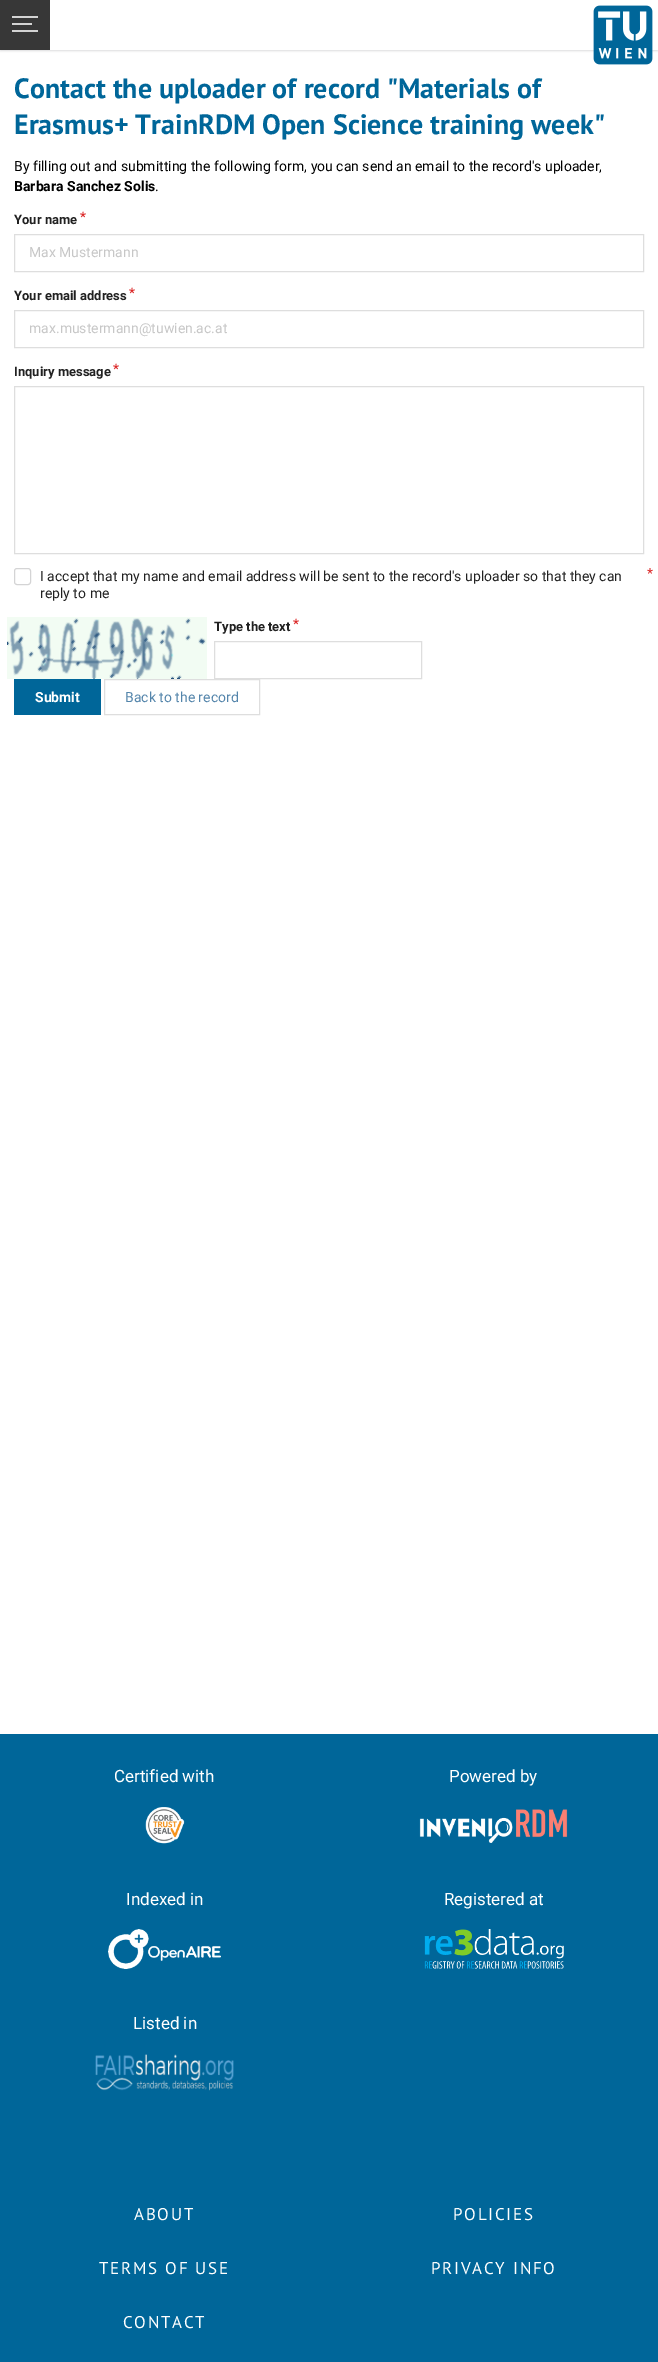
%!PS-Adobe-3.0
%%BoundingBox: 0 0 658 2362
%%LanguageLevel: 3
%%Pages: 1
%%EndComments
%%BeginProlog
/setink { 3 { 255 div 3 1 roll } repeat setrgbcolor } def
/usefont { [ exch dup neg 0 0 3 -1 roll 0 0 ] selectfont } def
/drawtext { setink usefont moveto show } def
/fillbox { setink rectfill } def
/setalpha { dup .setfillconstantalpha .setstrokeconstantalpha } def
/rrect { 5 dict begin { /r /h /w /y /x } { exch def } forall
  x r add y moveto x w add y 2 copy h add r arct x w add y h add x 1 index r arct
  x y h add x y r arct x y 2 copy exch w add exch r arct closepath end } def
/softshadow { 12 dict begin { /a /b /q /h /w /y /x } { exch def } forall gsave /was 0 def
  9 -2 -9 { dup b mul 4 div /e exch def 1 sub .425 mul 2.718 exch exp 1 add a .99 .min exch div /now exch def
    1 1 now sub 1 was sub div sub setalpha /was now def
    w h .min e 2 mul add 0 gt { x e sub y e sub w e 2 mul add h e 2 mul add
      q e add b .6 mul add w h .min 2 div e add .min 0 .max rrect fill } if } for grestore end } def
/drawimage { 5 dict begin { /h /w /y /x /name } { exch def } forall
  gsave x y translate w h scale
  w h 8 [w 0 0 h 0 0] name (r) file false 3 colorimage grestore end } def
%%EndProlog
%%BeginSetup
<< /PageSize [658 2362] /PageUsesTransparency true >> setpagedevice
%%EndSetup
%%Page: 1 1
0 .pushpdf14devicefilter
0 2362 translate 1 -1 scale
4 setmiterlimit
0 0 658 2362 255 255 255 fillbox
34 36 38 setink
0 1 658 50 0 1 0.15 softshadow
50 0 608 50 255 255 255 fillbox
0 0 50 50 55 55 55 fillbox
12 16 26 2 211 211 211 fillbox
12 23 20 2 211 211 211 fillbox
12 30 26 2 211 211 211 fillbox
(assets/img1.rgb) 593 5 60 60 drawimage
(Contact the uploader of record "Materials of) 14 98 /PTSans-Bold 28 0 102 153 drawtext
(Erasmus+ TrainRDM Open Science training week") 14 134 /PTSans-Bold 28 0 102 153 drawtext
(By filling out and submitting the following form, you can send an email to the record's uploader,) 14 171 /Roboto-Regular 14 0 0 0 drawtext
(Barbara Sanchez Solis) 14 191 /Roboto-Bold 14 0 0 0 drawtext
(.) 155 191 /Roboto-Regular 14 0 0 0 drawtext
(Your name) 14 224 /Roboto-Bold 13 33 33 33 drawtext
(*) 80 221 /Roboto-Bold 13 219 40 40 drawtext
222 222 222 setink
14.5 234.5 629 37 rectstroke
(Max Mustermann) 29 257 /Roboto-Regular 14 199 199 199 drawtext
(Your email address) 14 300 /Roboto-Bold 13 33 33 33 drawtext
(*) 129 297 /Roboto-Bold 13 219 40 40 drawtext
222 222 222 setink
14.5 310.5 629 37 rectstroke
(max.mustermann@tuwien.ac.at) 29 333 /Roboto-Regular 14 199 199 199 drawtext
(Inquiry message) 14 376 /Roboto-Bold 13 33 33 33 drawtext
(*) 113 373 /Roboto-Bold 13 219 40 40 drawtext
222 222 222 setink
14.5 386.5 629 167 rectstroke
212 212 213 setink
14.5 568.5 16 16 2.5 rrect stroke
(I accept that my name and email address will be sent to the record's uploader so that they can) 40 581 /Roboto-Regular 14 33 33 33 drawtext
(reply to me) 40 598 /Roboto-Regular 14 33 33 33 drawtext
(*) 647 578 /Roboto-Regular 14 219 40 40 drawtext
(assets/img2.rgb) 7 617 200 62 drawimage
(Type the text) 214 631 /Roboto-Bold 13 33 33 33 drawtext
(*) 293 628 /Roboto-Bold 13 219 40 40 drawtext
222 222 222 setink
214.5 641.5 207 37 rectstroke
14 679 87 36 0 102 153 fillbox
(Submit) 35 702 /Roboto-Bold 14 255 255 255 drawtext
222 222 222 setink
104.5 679.5 155 35 rectstroke
(Back to the record) 125 702 /Roboto-Regular 14 84 133 171 drawtext
0 1734 658 628 0 102 153 fillbox
(Certified with) 114 1782 /Roboto-Regular 17 255 255 255 drawtext
(assets/img3.rgb) 145 1807 40 37 drawimage
(Powered by) 449 1782 /Roboto-Regular 17 255 255 255 drawtext
(assets/img4.rgb) 419 1809 149 34 drawimage
(Indexed in) 126 1905 /Roboto-Regular 17 255 255 255 drawtext
(assets/img5.rgb) 108 1929 113 40 drawimage
(Registered at) 444 1905 /Roboto-Regular 17 255 255 255 drawtext
(assets/img6.rgb) 424 1929 140 40 drawimage
(Listed in) 133 2029 /Roboto-Regular 17 255 255 255 drawtext
(assets/img7.rgb) 95 2054 139 37 drawimage
/PTSans-Regular 17 usefont
134 2220 moveto 1.75 0 (ABOUT) ashow
453 2220 moveto 1.75 0 (POLICIES) ashow
99 2274 moveto 1.75 0 (TERMS OF USE) ashow
431 2274 moveto 1.75 0 (PRIVACY INFO) ashow
123 2328 moveto 1.75 0 (CONTACT) ashow
.poppdf14devicefilter showpage
%%EOF
